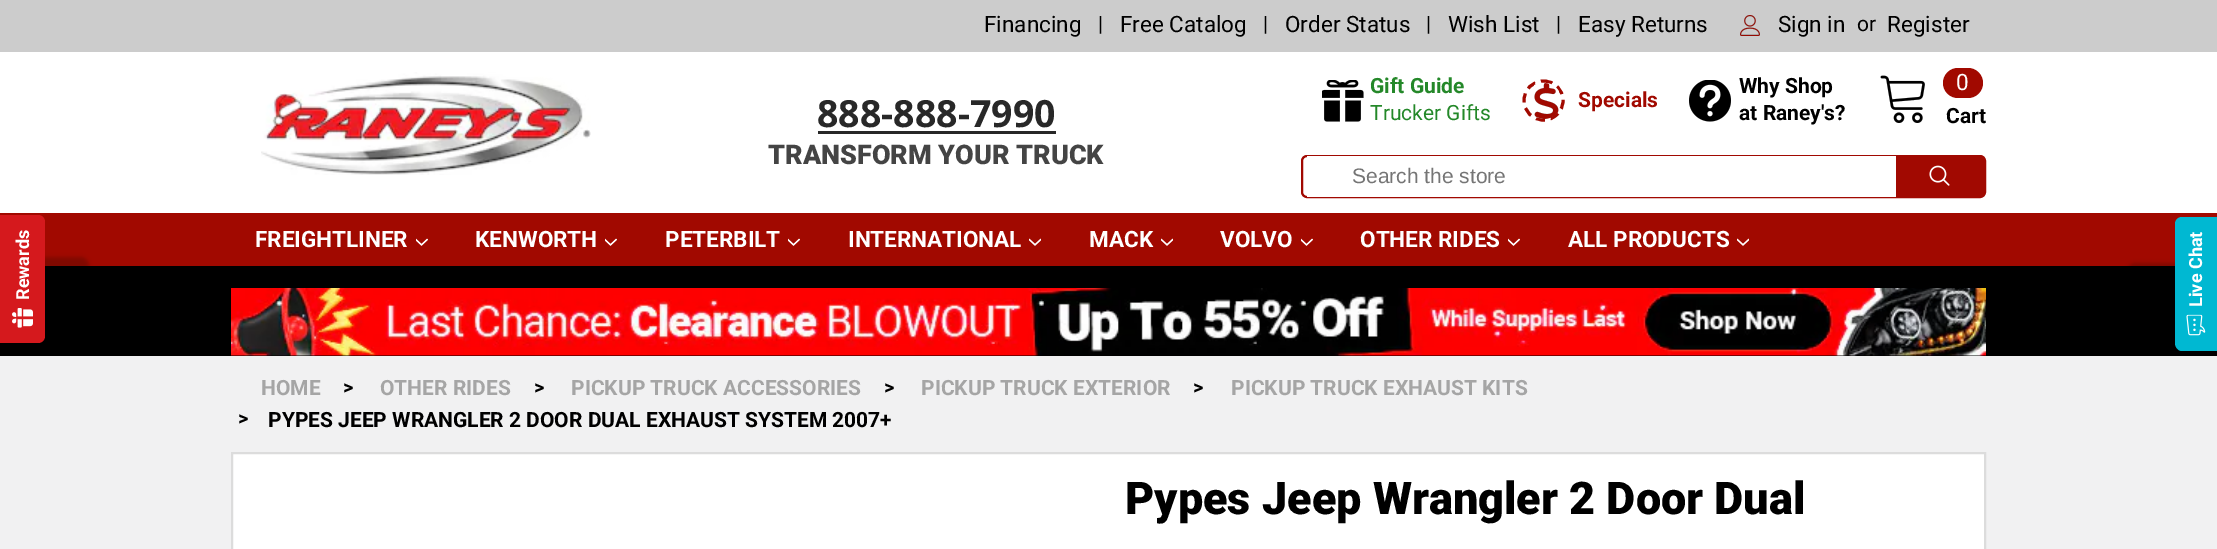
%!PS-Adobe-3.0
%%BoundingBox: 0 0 2217 549
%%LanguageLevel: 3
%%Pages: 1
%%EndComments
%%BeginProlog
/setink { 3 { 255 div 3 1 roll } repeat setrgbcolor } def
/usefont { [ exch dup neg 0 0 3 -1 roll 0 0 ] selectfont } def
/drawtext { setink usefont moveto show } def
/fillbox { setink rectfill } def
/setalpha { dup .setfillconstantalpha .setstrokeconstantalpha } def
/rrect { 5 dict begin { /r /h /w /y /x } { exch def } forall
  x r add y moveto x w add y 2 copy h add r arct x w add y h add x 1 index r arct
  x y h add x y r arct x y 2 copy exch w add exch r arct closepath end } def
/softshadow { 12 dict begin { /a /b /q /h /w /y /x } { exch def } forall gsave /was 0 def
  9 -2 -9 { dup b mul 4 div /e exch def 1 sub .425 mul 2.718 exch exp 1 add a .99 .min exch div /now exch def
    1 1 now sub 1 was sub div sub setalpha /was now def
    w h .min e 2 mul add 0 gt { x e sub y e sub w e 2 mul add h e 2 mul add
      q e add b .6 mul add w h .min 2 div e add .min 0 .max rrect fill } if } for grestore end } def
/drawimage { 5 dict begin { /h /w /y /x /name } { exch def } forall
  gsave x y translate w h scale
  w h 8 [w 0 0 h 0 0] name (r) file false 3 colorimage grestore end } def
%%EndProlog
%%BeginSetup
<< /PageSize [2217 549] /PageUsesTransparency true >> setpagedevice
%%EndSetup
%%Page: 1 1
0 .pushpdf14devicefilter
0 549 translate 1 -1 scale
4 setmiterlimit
0 0 2217 549 241 241 242 fillbox
0 52 2217 161 255 255 255 fillbox
0 0 2217 52 204 204 204 fillbox
(Financing) 984 32 /Roboto-Regular 22.5 0 0 0 drawtext
(|) 1098 31 /Roboto-Regular 21 0 0 0 drawtext
(Free Catalog) 1120 32 /Roboto-Regular 22.5 0 0 0 drawtext
(|) 1263 31 /Roboto-Regular 21 0 0 0 drawtext
(Order Status) 1285 32 /Roboto-Regular 22.5 0 0 0 drawtext
(|) 1426 31 /Roboto-Regular 21 0 0 0 drawtext
(Wish List) 1448 32 /Roboto-Regular 22.5 0 0 0 drawtext
(|) 1556 31 /Roboto-Regular 21 0 0 0 drawtext
(Easy Returns) 1578 32 /Roboto-Regular 22.5 0 0 0 drawtext
(assets/img1.rgb) 1740 15 20 21 drawimage
(Sign in) 1778 32 /Roboto-Regular 22.5 0 0 0 drawtext
(or) 1857 31 /Roboto-Regular 21 0 0 0 drawtext
(Register) 1887 32 /Roboto-Regular 22.5 0 0 0 drawtext
(assets/img2.rgb) 261 72 330 103 drawimage
(888-888-7990) 817 127 /OpenSans-Bold 37.5 40 40 40 drawtext
818 131 238 3 40 40 40 fillbox
(TRANSFORM YOUR TRUCK) 768 164 /Roboto-Black 27 68 68 68 drawtext
(assets/img3.rgb) 1322 80 42 42 drawimage
(Gift Guide) 1370 93 /Roboto-Bold 21 36 136 41 drawtext
(Trucker Gifts) 1370 120 /Roboto-Regular 21 36 136 41 drawtext
161 9 0 setink
3 setlinewidth
[9 6] 0 setdash
1543.5 81 moveto 1554.5 81 1563 89.5 1563 100.5 curveto 1563 111.5 1554.5 120 1543.5 120 curveto 1532.5 120 1524 111.5 1524 100.5 curveto 1524 89.5 1532.5 81 1543.5 81 curveto closepath stroke
(assets/img4.rgb) 1534 83 25 36 drawimage
(Specials) 1578 107 /Roboto-Bold 21 161 9 0 drawtext
(assets/img5.rgb) 1689 80 42 42 drawimage
(Why Shop) 1739 93 /Roboto-Bold 21 0 0 0 drawtext
(at Raney's?) 1739 120 /Roboto-Bold 21 0 0 0 drawtext
(assets/img6.rgb) 1880 75 45 48 drawimage
161 9 0 setink
1943 68 40 30 15 rrect fill
(0) 1956 90 /Roboto-Regular 22.5 255 255 255 drawtext
(Cart) 1946 123 /Roboto-Bold 21 0 0 0 drawtext
161 9 1 setink
2 setlinewidth
[] 0 setdash
1302 156 683 41 5 rrect stroke
1307 156 589 41 255 255 255 fillbox
(Search the store) 1352 183 /LiberationSans-Regular 21 117 117 117 drawtext
161 9 1 setink
1896 156 moveto 1979 156 lineto 1982.5 156 1985 158.5 1985 162 curveto 1985 191 lineto 1985 194.5 1982.5 197 1979 197 curveto 1896 197 lineto closepath fill
(assets/img7.rgb) 1929 165 21 21 drawimage
0 213 2217 53 161 9 0 fillbox
45 266 2130 22 0 0 0 fillbox
(FREIGHTLINER) 255 247 /Roboto-Bold 22.5 255 255 255 drawtext
(assets/img8.rgb) 416 238 12 8 drawimage
(KENWORTH) 475 247 /Roboto-Bold 22.5 255 255 255 drawtext
(assets/img8.rgb) 605 238 12 8 drawimage
(PETERBILT) 665 247 /Roboto-Bold 22.5 255 255 255 drawtext
(assets/img8.rgb) 788 238 12 8 drawimage
(INTERNATIONAL) 848 247 /Roboto-Bold 22.5 255 255 255 drawtext
(assets/img9.rgb) 1029 238 12 8 drawimage
(MACK) 1089 247 /Roboto-Bold 22.5 255 255 255 drawtext
(assets/img9.rgb) 1161 238 12 8 drawimage
(VOLVO) 1220 247 /Roboto-Bold 22.5 255 255 255 drawtext
(assets/img8.rgb) 1301 238 12 8 drawimage
(OTHER RIDES) 1360 247 /Roboto-Bold 22.5 255 255 255 drawtext
(assets/img8.rgb) 1508 238 12 8 drawimage
(ALL PRODUCTS) 1568 247 /Roboto-Bold 22.5 255 255 255 drawtext
(assets/img9.rgb) 1737 238 12 8 drawimage
0 288 2217 68 0 0 0 fillbox
-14 257 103 45 8 2 0.2 softshadow
213 25 29 setink
0 343 moveto 0 215 lineto 38 215 lineto 42 215 45 218 45 222 curveto 45 336 lineto 45 340 42 343 38 343 curveto closepath fill
/Roboto-Bold 18 usefont
255 255 255 setink
gsave 29 300 translate -90 rotate 0 0 moveto (Rewards) show grestore
(assets/img10.rgb) 12 308 21 20 drawimage
0 0 0 setink
2127 263 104 42 8 2 0.2 softshadow
0 184 210 setink
2175 343 moveto 2175 224 lineto 2175 220 2178 217 2182 217 curveto 2217 217 lineto 2217 351 lineto 2182 351 lineto 2178 351 2175 347 2175 343 curveto closepath fill
255 255 255 setink
gsave 2202 307 translate -90 rotate 0 0 moveto (Live Chat) show grestore
(assets/img11.rgb) 2186 314 20 22 drawimage
(assets/img12.rgb) 231 288 1755 68 drawimage
(HOME) 261 395 /Roboto-Bold 21 165 165 165 drawtext
(>) 343 394 /Roboto-Bold 20 0 0 0 drawtext
(OTHER RIDES) 380 395 /Roboto-Bold 21 165 165 165 drawtext
(>) 534 394 /Roboto-Bold 20 0 0 0 drawtext
(PICKUP TRUCK ACCESSORIES) 571 395 /Roboto-Bold 21 165 165 165 drawtext
(>) 884 394 /Roboto-Bold 20 0 0 0 drawtext
(PICKUP TRUCK EXTERIOR) 921 395 /Roboto-Bold 21 165 165 165 drawtext
(>) 1193 394 /Roboto-Bold 20 0 0 0 drawtext
(PICKUP TRUCK EXHAUST KITS) 1231 395 /Roboto-Bold 21 165 165 165 drawtext
(>) 238 425 /Roboto-Bold 20 0 0 0 drawtext
(PYPES JEEP WRANGLER 2 DOOR DUAL EXHAUST SYSTEM 2007+) 268 427 /Roboto-Bold 21 0 0 0 drawtext
255 255 255 setink
232 453 moveto 1985 453 lineto 1985 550 lineto 232 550 lineto closepath gsave fill grestore
220 220 220 setink
stroke
(Pypes Jeep Wrangler 2 Door Dual) 1125 514 /Roboto-Black 45 0 0 0 drawtext
.poppdf14devicefilter showpage
%%EOF
